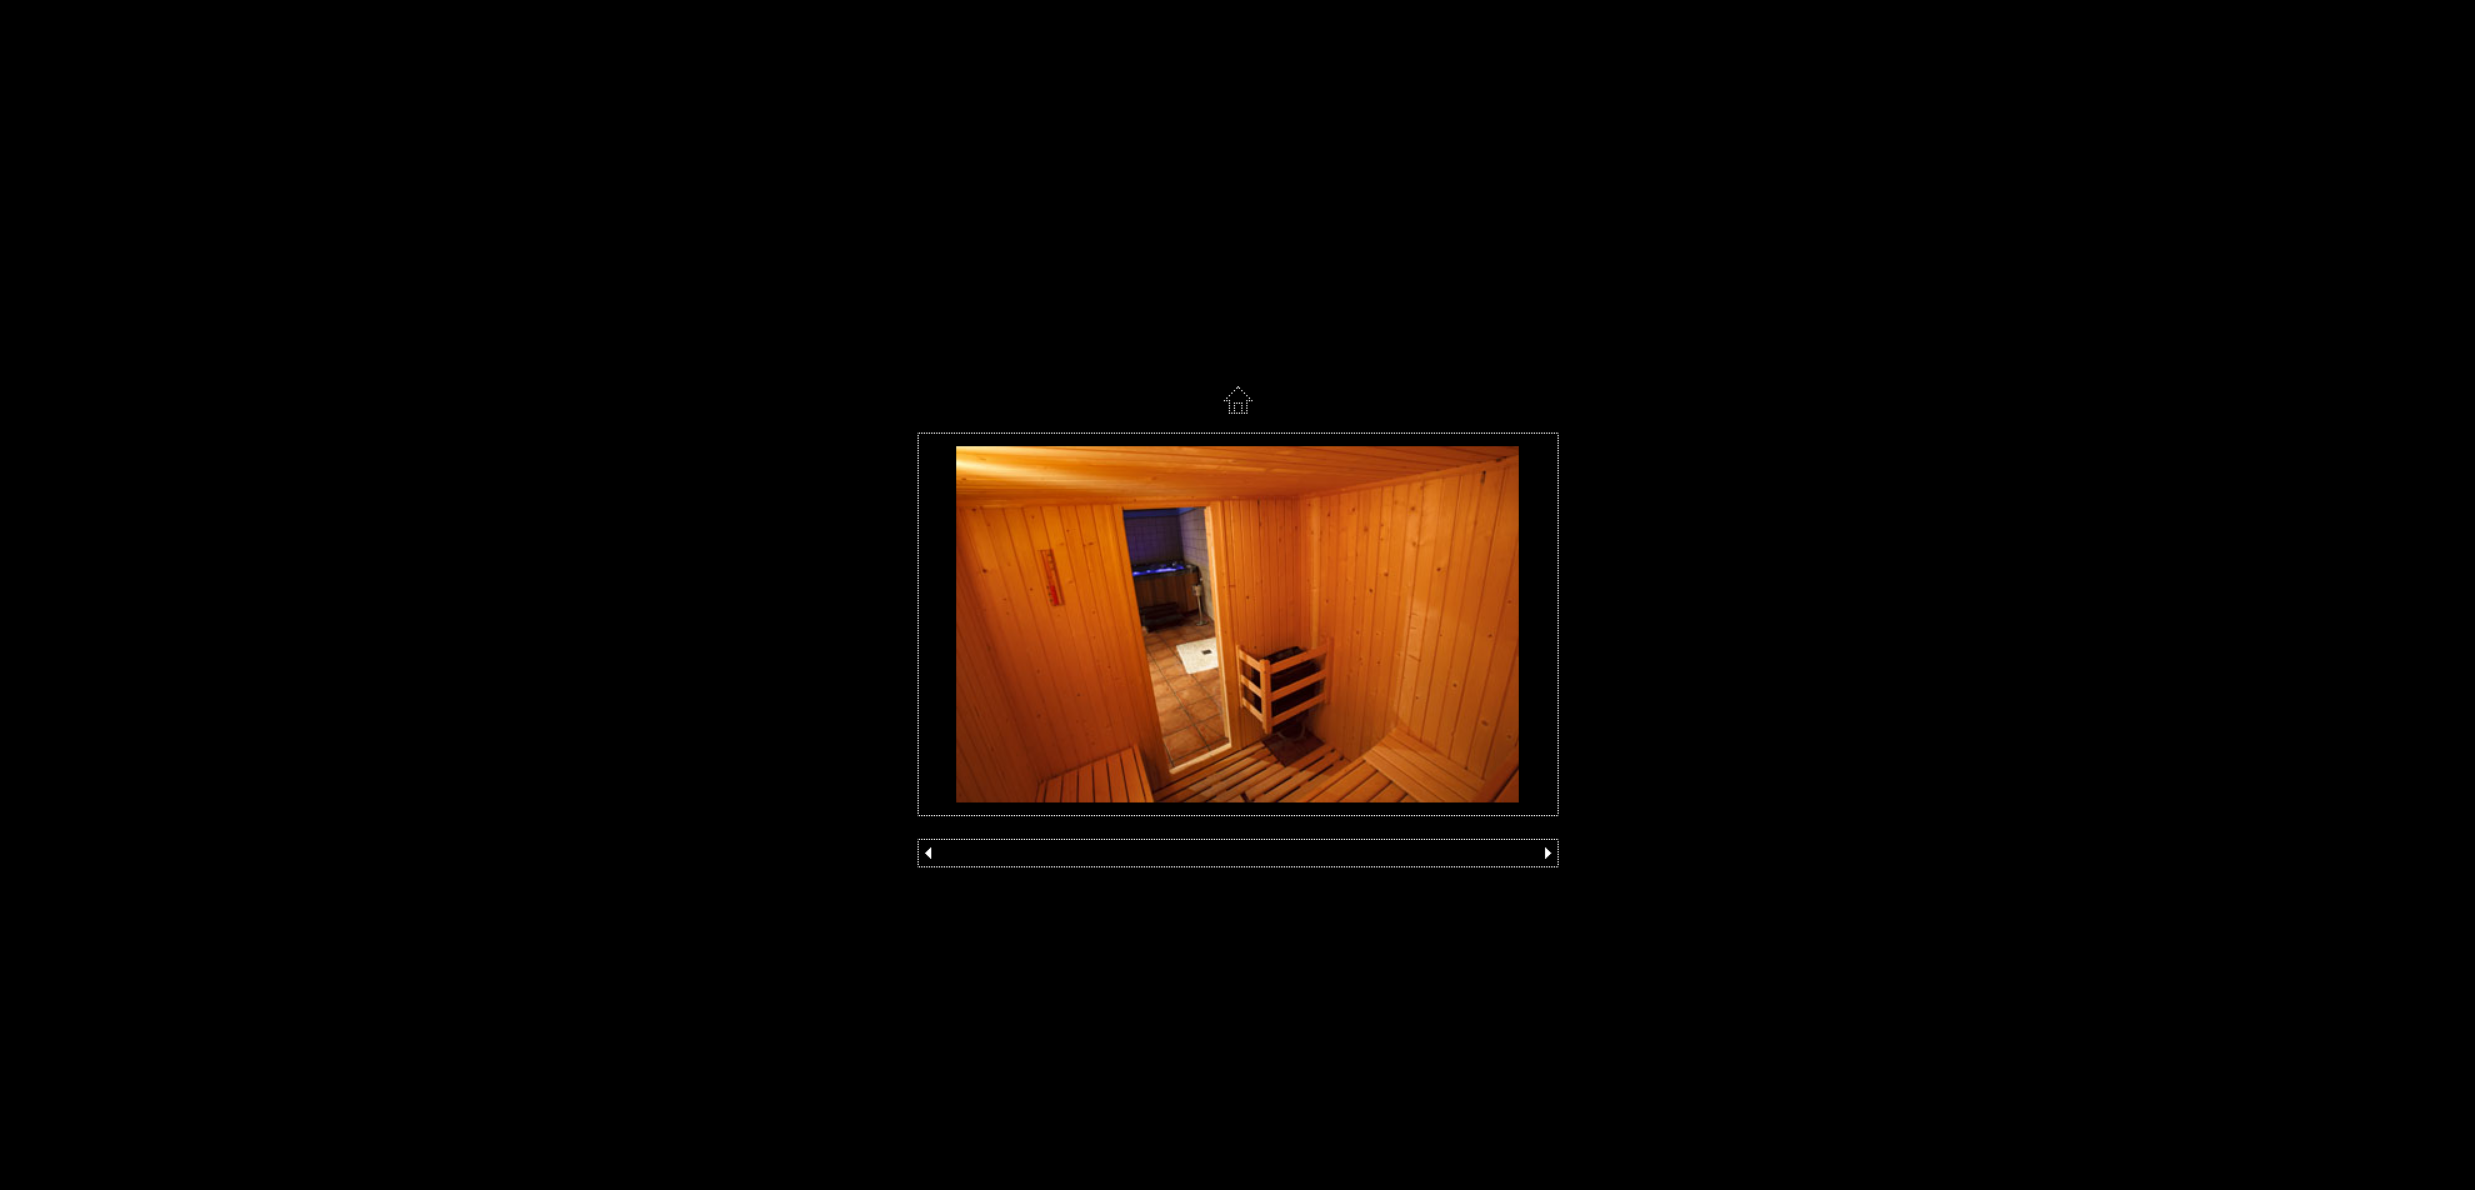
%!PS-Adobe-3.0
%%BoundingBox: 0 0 2475 1190
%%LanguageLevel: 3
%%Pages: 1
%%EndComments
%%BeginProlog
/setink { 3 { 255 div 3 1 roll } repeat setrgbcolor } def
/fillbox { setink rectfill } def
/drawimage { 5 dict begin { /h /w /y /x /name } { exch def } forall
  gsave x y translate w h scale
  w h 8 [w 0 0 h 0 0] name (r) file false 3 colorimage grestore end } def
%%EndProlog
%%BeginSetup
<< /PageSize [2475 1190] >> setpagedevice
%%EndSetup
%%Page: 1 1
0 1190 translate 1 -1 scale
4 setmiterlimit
0 0 2475 1190 0 0 0 fillbox
(assets/img1.rgb) 1223 386 30 28 drawimage
(assets/img2.rgb) 917 432 642 2 drawimage
(assets/img3.rgb) 917 433 2 382 drawimage
(assets/img4.rgb) 956 446 563 357 drawimage
(assets/img5.rgb) 1557 433 2 382 drawimage
(assets/img6.rgb) 917 815 642 2 drawimage
(assets/img7.rgb) 917 838 642 2 drawimage
(assets/img8.rgb) 917 840 2 27 drawimage
(assets/img9.rgb) 924 847 8 12 drawimage
(assets/img10.rgb) 1544 847 8 12 drawimage
(assets/img8.rgb) 1557 840 2 27 drawimage
(assets/img11.rgb) 917 866 642 2 drawimage
showpage
%%EOF
